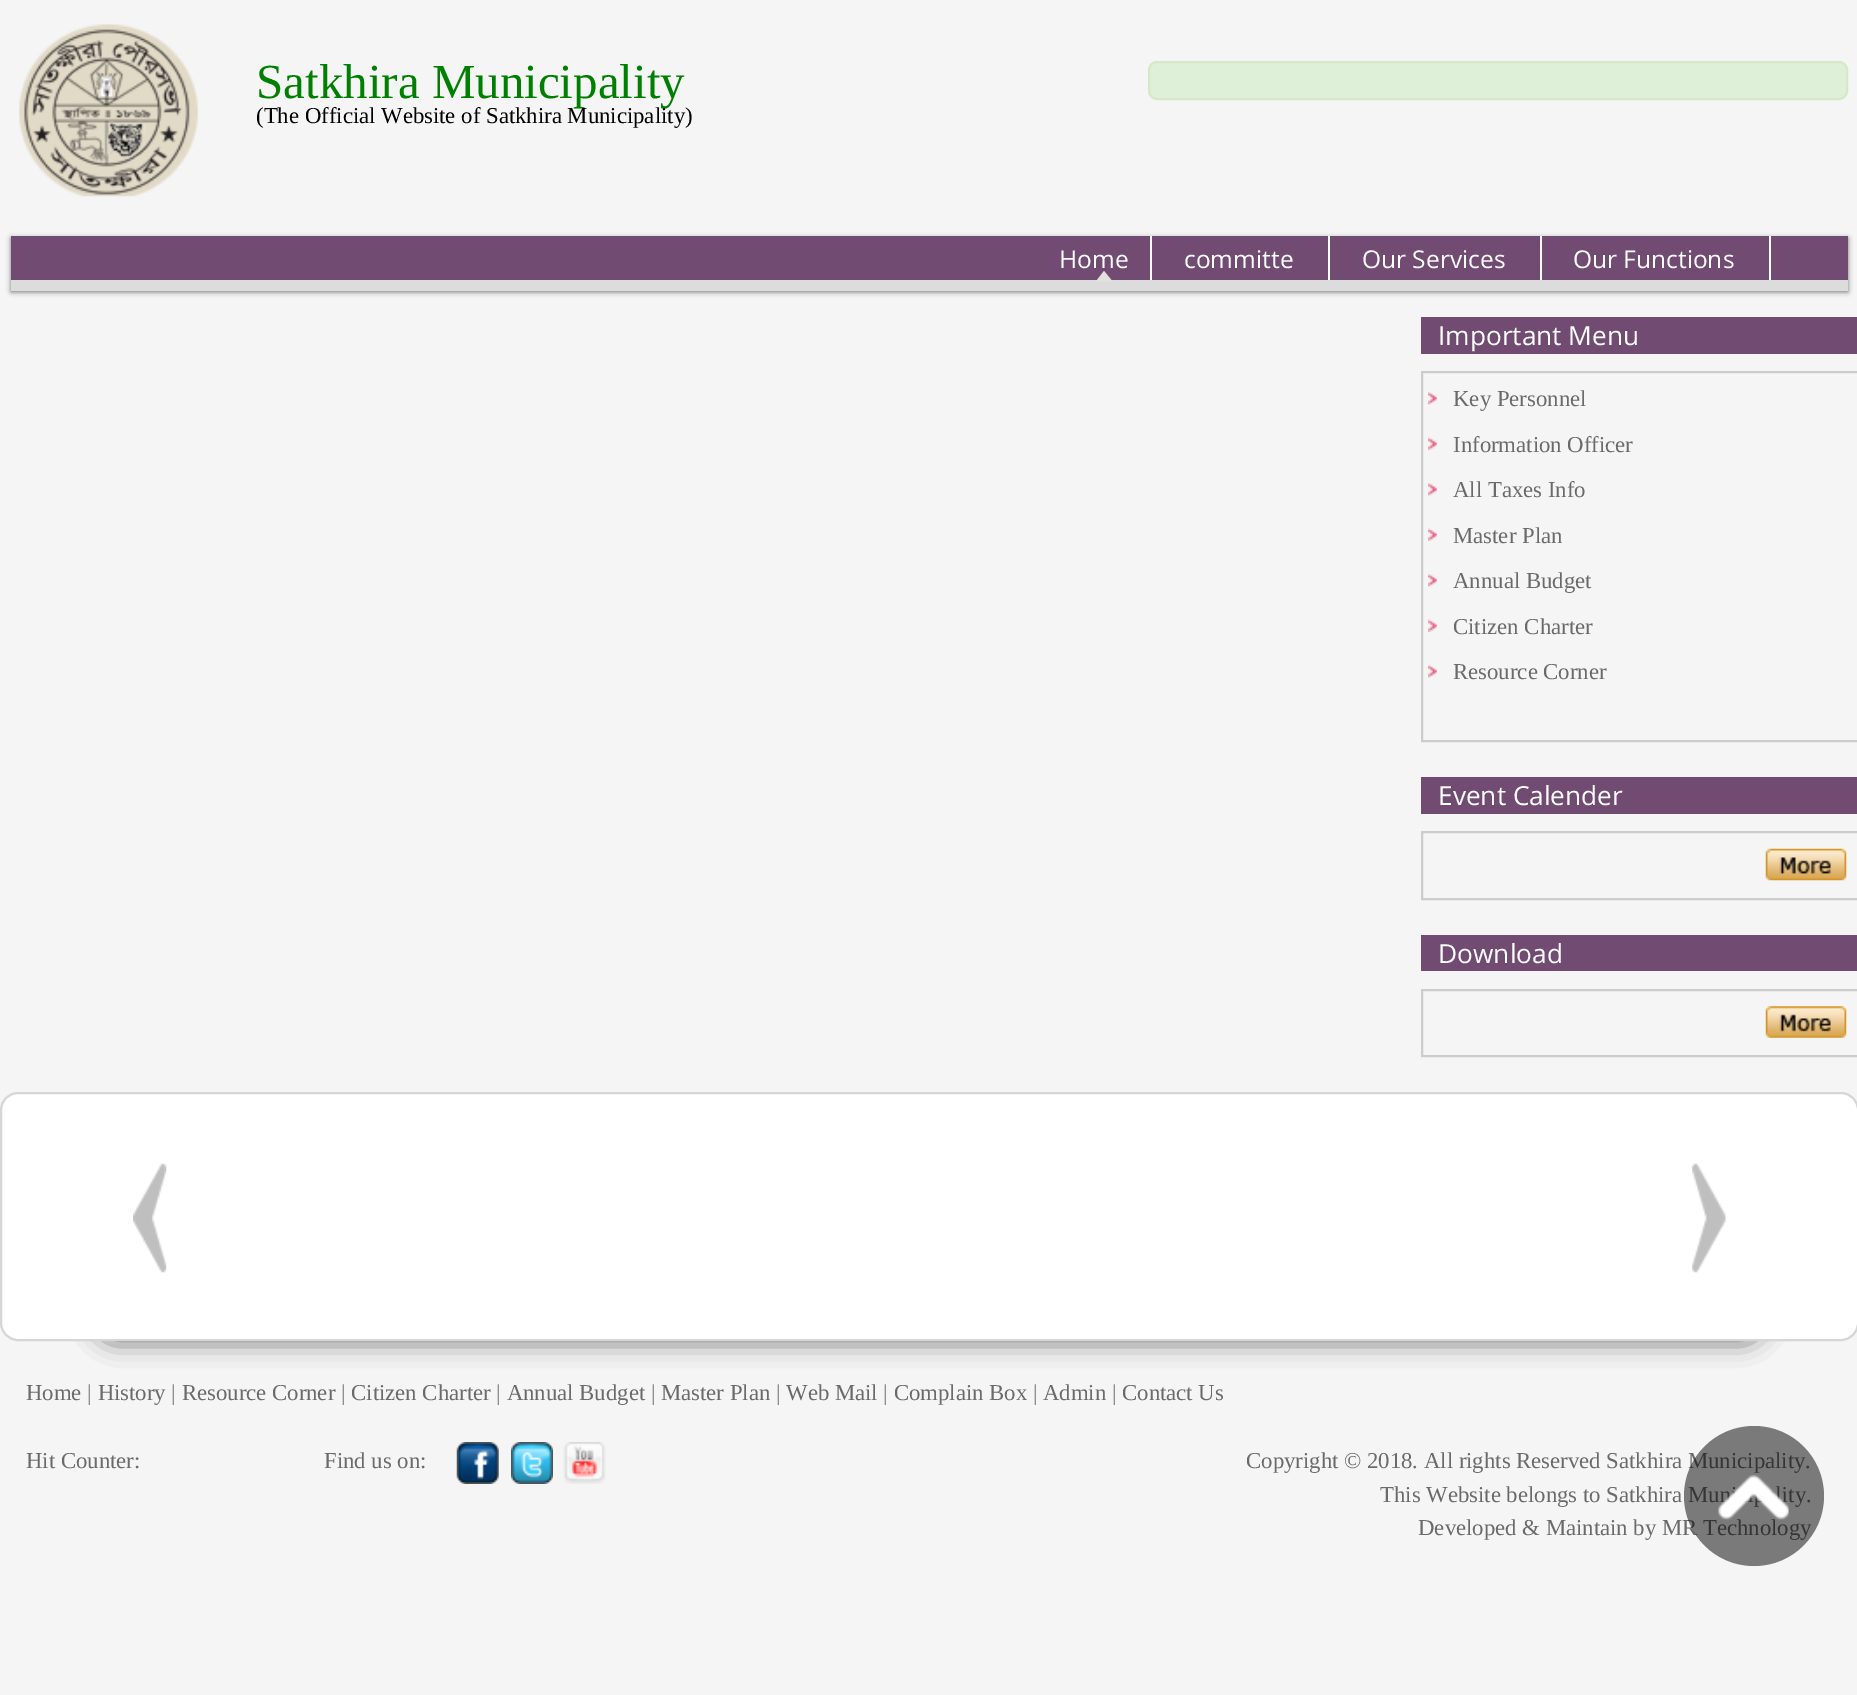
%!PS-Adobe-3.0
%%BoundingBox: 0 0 1857 1695
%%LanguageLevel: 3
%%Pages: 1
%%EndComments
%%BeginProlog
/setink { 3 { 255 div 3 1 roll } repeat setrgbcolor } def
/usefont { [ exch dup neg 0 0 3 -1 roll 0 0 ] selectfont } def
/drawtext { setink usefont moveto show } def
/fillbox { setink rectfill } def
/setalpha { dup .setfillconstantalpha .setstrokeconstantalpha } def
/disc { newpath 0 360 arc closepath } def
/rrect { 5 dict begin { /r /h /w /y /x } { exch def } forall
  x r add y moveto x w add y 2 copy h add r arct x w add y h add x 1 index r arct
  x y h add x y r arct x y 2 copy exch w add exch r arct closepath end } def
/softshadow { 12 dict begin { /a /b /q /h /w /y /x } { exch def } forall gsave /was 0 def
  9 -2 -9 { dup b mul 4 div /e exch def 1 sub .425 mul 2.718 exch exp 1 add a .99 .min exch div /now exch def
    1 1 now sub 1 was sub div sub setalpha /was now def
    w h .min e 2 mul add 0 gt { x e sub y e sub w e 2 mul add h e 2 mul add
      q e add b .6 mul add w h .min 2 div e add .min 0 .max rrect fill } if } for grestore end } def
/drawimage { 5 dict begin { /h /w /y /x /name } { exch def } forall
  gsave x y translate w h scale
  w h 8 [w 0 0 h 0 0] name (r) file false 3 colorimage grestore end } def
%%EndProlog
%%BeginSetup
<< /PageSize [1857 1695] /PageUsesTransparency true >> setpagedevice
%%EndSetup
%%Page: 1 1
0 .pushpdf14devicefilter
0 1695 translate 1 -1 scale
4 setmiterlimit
0 0 1857 1695 245 245 245 fillbox
(assets/img1.rgb) 19 24 180 173 drawimage
(Satkhira Municipality) 256 98 /LiberationSerif-Regular 49 0 128 0 drawtext
(\(The Official Website of Satkhira Municipality\)) 256 123 /LiberationSerif-Regular 22.75 0 0 0 drawtext
223 240 216 setink
1149 62 698 37 8 rrect gsave fill grestore
214 233 198 setink
2 setlinewidth
stroke
121 121 121 setink
11 238 1837 54 0 2.5 1 softshadow
11 236 1837 44 114 75 115 fillbox
11 280 1837 11 220 220 220 fillbox
1150 236 2 44 255 255 255 fillbox
(Home) 1059 268 /OpenSans-Regular 24.5 255 255 255 drawtext
225 225 225 setink
1113 282 moveto 1095.5 282 lineto 1104 271 lineto closepath fill
1328 236 2 44 255 255 255 fillbox
(committe) 1184 268 /OpenSans-Regular 24.5 255 255 255 drawtext
1540 236 2 44 255 255 255 fillbox
(Our Services) 1362 268 /OpenSans-Regular 24.5 255 255 255 drawtext
1769 236 2 44 255 255 255 fillbox
(Our Functions) 1573 268 /OpenSans-Regular 24.5 255 255 255 drawtext
1421 317 436 37 114 75 115 fillbox
(Important Menu) 1438 345 /OpenSans-Regular 26.25 255 255 255 drawtext
204 204 204 setink
1422 372 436 369 rectstroke
(assets/img2.rgb) 1428 392 9 13 drawimage
(Key Personnel) 1453 406 /LiberationSerif-Regular 22.75 106 106 106 drawtext
(assets/img3.rgb) 1428 437 9 13 drawimage
(Information Officer) 1453 452 /LiberationSerif-Regular 22.75 106 106 106 drawtext
(assets/img2.rgb) 1428 483 9 13 drawimage
(All Taxes Info) 1453 497 /LiberationSerif-Regular 22.75 106 106 106 drawtext
(assets/img3.rgb) 1428 528 9 13 drawimage
(Master Plan) 1453 543 /LiberationSerif-Regular 22.75 106 106 106 drawtext
(assets/img2.rgb) 1428 574 9 13 drawimage
(Annual Budget) 1453 588 /LiberationSerif-Regular 22.75 106 106 106 drawtext
(assets/img3.rgb) 1428 619 9 13 drawimage
(Citizen Charter) 1453 634 /LiberationSerif-Regular 22.75 106 106 106 drawtext
(assets/img2.rgb) 1428 665 9 13 drawimage
(Resource Corner) 1453 679 /LiberationSerif-Regular 22.75 106 106 106 drawtext
1421 777 436 37 114 75 115 fillbox
(Event Calender) 1438 805 /OpenSans-Regular 26.25 255 255 255 drawtext
204 204 204 setink
1422 832 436 67 rectstroke
(assets/img4.rgb) 1765 848 82 33 drawimage
1421 935 436 36 114 75 115 fillbox
(Download) 1438 963 /OpenSans-Regular 26.25 255 255 255 drawtext
204 204 204 setink
1422 990 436 66 rectstroke
(assets/img5.rgb) 1765 1006 82 32 drawimage
0 0 0 setink
95 1251 1669 88 21 13 0.7 softshadow
255 255 255 setink
1 1093 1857 247 17 rrect gsave fill grestore
215 213 213 setink
stroke
(assets/img6.rgb) 133 1163 34 110 drawimage
(assets/img7.rgb) 1692 1163 34 110 drawimage
(Home | History | Resource Corner | Citizen Charter | Annual Budget | Master Plan | Web Mail | Complain Box | Admin | Contact Us) 26 1400 /LiberationSerif-Regular 22.75 106 106 106 drawtext
(Hit Counter:) 26 1468 /LiberationSerif-Regular 22.75 106 106 106 drawtext
(Find us on:) 324 1468 /LiberationSerif-Regular 22.75 106 106 106 drawtext
(assets/img8.rgb) 456 1442 43 42 drawimage
(assets/img9.rgb) 511 1442 42 42 drawimage
(assets/img10.rgb) 563 1442 43 42 drawimage
(Copyright © 2018. All rights Reserved Satkhira Municipality.) 1246 1468 /LiberationSerif-Regular 22.75 106 106 106 drawtext
(This Website belongs to Satkhira Mu) 1380 1502 /LiberationSerif-Regular 22.75 106 106 106 drawtext
(ity.) 1782 1502 /LiberationSerif-Regular 22.75 106 106 106 drawtext
(Developed & Maintain by MR Technology) 1418 1535 /LiberationSerif-Regular 22.75 106 106 106 drawtext
0.5 setalpha
0 0 0 setink
1754 1496 70 disc fill
1 setalpha
(assets/img11.rgb) 1718 1475 71 45 drawimage
.poppdf14devicefilter showpage
%%EOF
